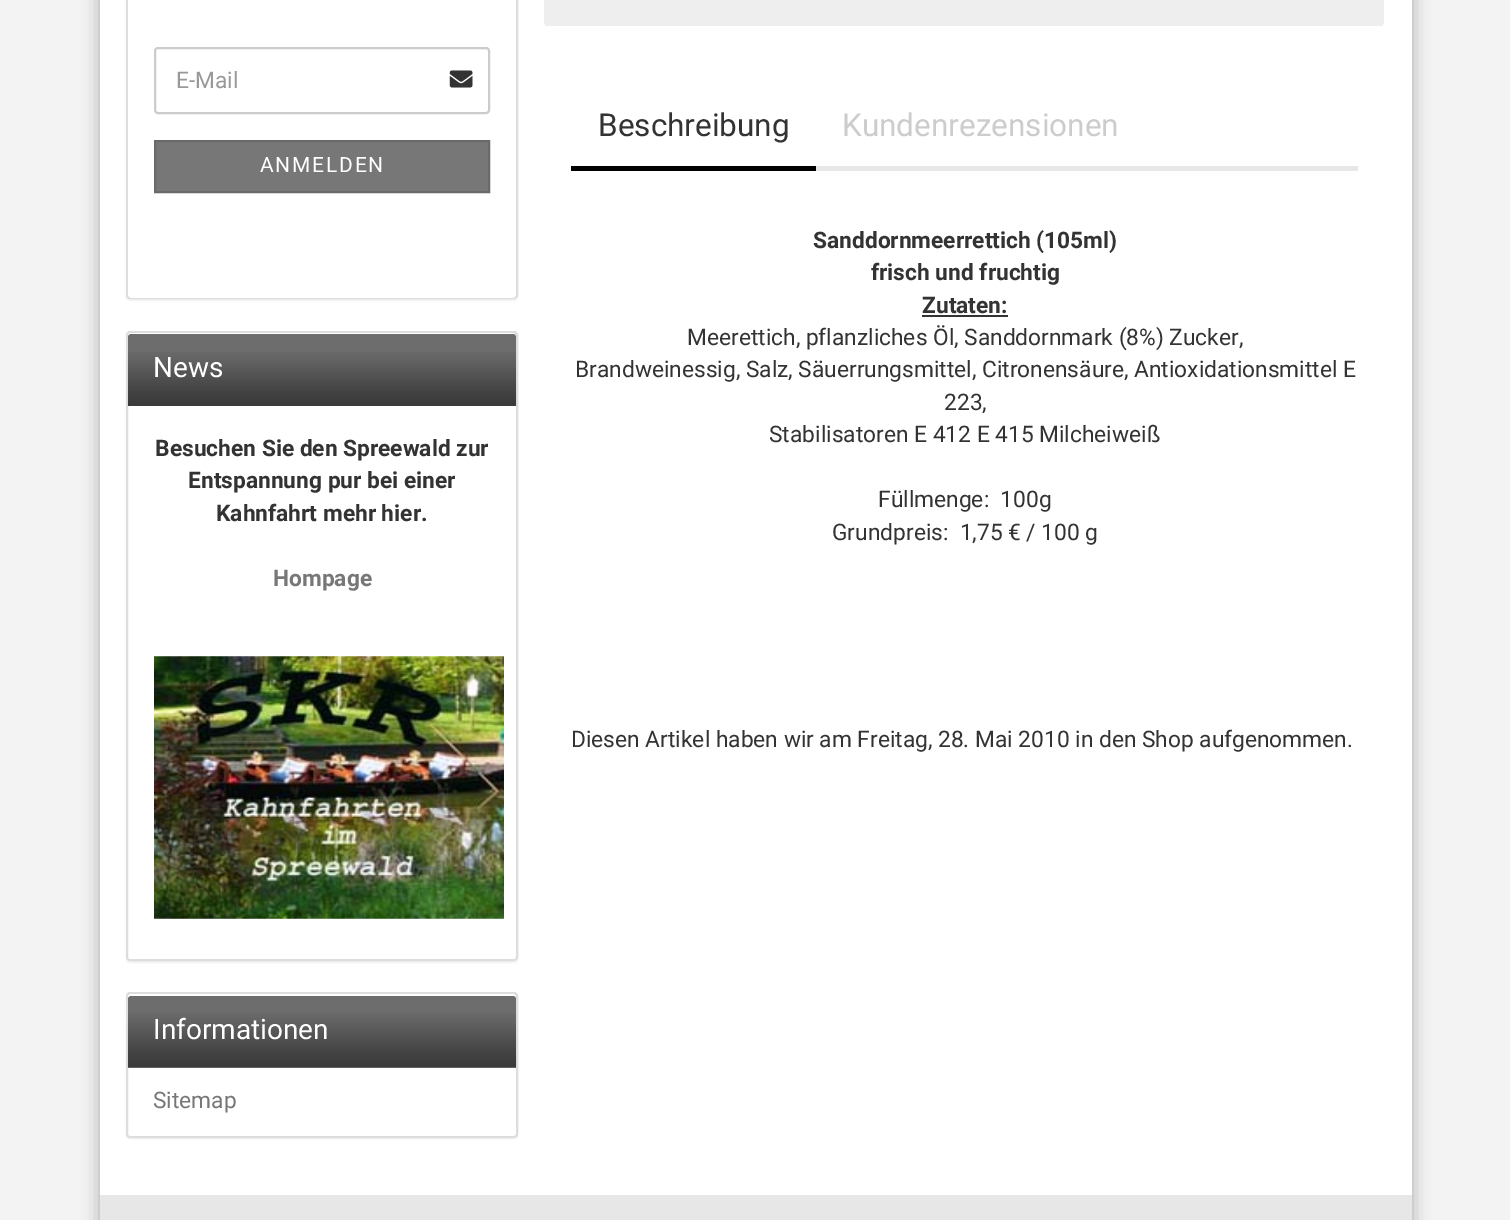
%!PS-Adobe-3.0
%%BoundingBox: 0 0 1510 1220
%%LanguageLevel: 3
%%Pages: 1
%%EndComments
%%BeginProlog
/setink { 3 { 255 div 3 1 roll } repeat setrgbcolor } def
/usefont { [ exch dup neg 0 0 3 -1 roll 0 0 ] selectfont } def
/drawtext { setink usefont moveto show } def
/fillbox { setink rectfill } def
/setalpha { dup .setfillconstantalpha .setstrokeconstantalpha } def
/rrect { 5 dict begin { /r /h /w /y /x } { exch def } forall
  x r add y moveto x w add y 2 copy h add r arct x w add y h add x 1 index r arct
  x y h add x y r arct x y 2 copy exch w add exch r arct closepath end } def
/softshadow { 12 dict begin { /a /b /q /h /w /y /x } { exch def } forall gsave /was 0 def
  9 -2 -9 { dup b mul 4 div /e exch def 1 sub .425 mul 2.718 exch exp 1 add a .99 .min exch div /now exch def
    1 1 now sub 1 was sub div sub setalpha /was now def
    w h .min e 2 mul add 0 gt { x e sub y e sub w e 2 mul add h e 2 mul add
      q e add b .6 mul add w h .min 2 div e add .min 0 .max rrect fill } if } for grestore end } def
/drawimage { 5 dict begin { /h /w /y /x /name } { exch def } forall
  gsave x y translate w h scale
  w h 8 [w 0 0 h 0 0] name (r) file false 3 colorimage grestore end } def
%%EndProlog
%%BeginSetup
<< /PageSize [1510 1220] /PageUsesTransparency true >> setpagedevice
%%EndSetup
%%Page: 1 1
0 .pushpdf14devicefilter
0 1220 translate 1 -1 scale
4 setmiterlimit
0 0 1510 1220 243 243 243 fillbox
0 0 0 setink
100 -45 1312 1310 18 9 0.3 softshadow
100 0 1312 1195 255 255 255 fillbox
0 0 0 setink
126 -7 392 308 4 1 0.05 softshadow
221 221 221 setink
2 setlinewidth
127 -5 390 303 3 rrect stroke
255 255 255 setink
128 -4 moveto 516 -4 lineto 516 294 lineto 516 296 514 298 512 298 curveto 132 298 lineto 130 298 128 296 128 294 curveto closepath fill
204 204 204 setink
155 48 334 65 3 rrect stroke
(E-Mail) 176 88 /Roboto-Regular 22.75 153 153 153 drawtext
(assets/img1.rgb) 449 70 24 18 drawimage
119 119 119 setink
155 141 moveto 489 141 lineto 489 192 lineto 155 192 lineto closepath gsave fill grestore
106 106 106 setink
stroke
/Roboto-Regular 21 usefont
255 255 255 setink
260 172 moveto 1.75 0 (ANMELDEN) ashow
0 0 0 setink
126 333 392 630 4 1 0.05 softshadow
255 255 255 setink
127 332 390 628 3 rrect gsave fill grestore
221 221 221 setink
stroke
109 109 109 setink
130 333 moveto 514 333 lineto 515 333 516 334 516 335 curveto 516 406 lineto 128 406 lineto 128 335 lineto 128 334 129 333 130 333 curveto closepath fill
(assets/img2.rgb) 127 352 390 54 drawimage
255 255 255 setink
130 334 moveto 514 334 lineto 515 334 516 335 516 336 curveto 516 334 lineto 514 333 lineto 130 333 lineto 128 333 128 335 128 336 curveto 128 335 129 334 130 334 curveto closepath fill
(News) 153 377 /Roboto-Regular 28 255 255 255 drawtext
(Besuchen Sie den Spreewald zur) 155 456 /Roboto-Bold 22.75 51 51 51 drawtext
(Entspannung pur bei einer) 188 488 /Roboto-Bold 22.75 51 51 51 drawtext
(Kahnfahrt mehr hier.) 216 521 /Roboto-Bold 22.75 51 51 51 drawtext
(Hompage) 273 586 /Roboto-Bold 22.75 119 119 119 drawtext
(assets/img3.rgb) 154 656 350 263 drawimage
0 0 0 setink
126 994 392 145 4 1 0.05 softshadow
255 255 255 setink
127 993 390 144 3 rrect gsave fill grestore
221 221 221 setink
stroke
109 109 109 setink
130 994 moveto 514 994 lineto 515 994 516 995 516 996 curveto 516 1068 lineto 128 1068 lineto 128 996 lineto 128 995 129 994 130 994 curveto closepath fill
(assets/img4.rgb) 127 1013 390 55 drawimage
255 255 255 setink
130 996 moveto 514 996 lineto 515 996 516 997 516 998 curveto 516 996 lineto 516 995 515 994 514 994 curveto 130 994 lineto 129 994 128 995 128 996 curveto 128 998 lineto 128 997 129 996 130 996 curveto closepath fill
(Informationen) 153 1039 /Roboto-Regular 28 255 255 255 drawtext
(Sitemap) 153 1108 /Roboto-Regular 22.75 119 119 119 drawtext
238 238 238 setink
544 -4 840 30 4 rrect fill
816 166 542 5 231 231 231 fillbox
571 166 245 5 0 0 0 fillbox
(Beschreibung) 598 136 /Roboto-Regular 31.5 51 51 51 drawtext
(Kundenrezensionen) 842 136 /Roboto-Regular 31.5 204 204 204 drawtext
(Sanddornmeerrettich \(105ml\)) 813 248 /Roboto-Bold 22.75 51 51 51 drawtext
(frisch und fruchtig) 871 280 /Roboto-Bold 22.75 51 51 51 drawtext
(Zutaten:) 922 313 /Roboto-Bold 22.75 51 51 51 drawtext
922 315 86 2 51 51 51 fillbox
(Meerettich, pflanzliches Öl, Sanddornmark \(8%\) Zucker,) 687 345 /Roboto-Regular 22.75 51 51 51 drawtext
(Brandweinessig, Salz, Säuerrungsmittel, Citronensäure, Antioxidationsmittel E) 575 377 /Roboto-Regular 22.75 51 51 51 drawtext
(223,) 944 410 /Roboto-Regular 22.75 51 51 51 drawtext
(Stabilisatoren E 412 E 415 Milcheiweiß) 769 442 /Roboto-Regular 22.75 51 51 51 drawtext
(Füllmenge:  100g) 878 507 /Roboto-Regular 22.75 51 51 51 drawtext
(Grundpreis:  1,75 € / 100 g) 832 540 /Roboto-Regular 22.75 51 51 51 drawtext
(Diesen Artikel haben wir am Freitag, 28. Mai 2010 in den Shop aufgenommen.) 571 747 /Roboto-Regular 22.75 51 51 51 drawtext
100 1195 1312 25 231 231 231 fillbox
.poppdf14devicefilter showpage
%%EOF
